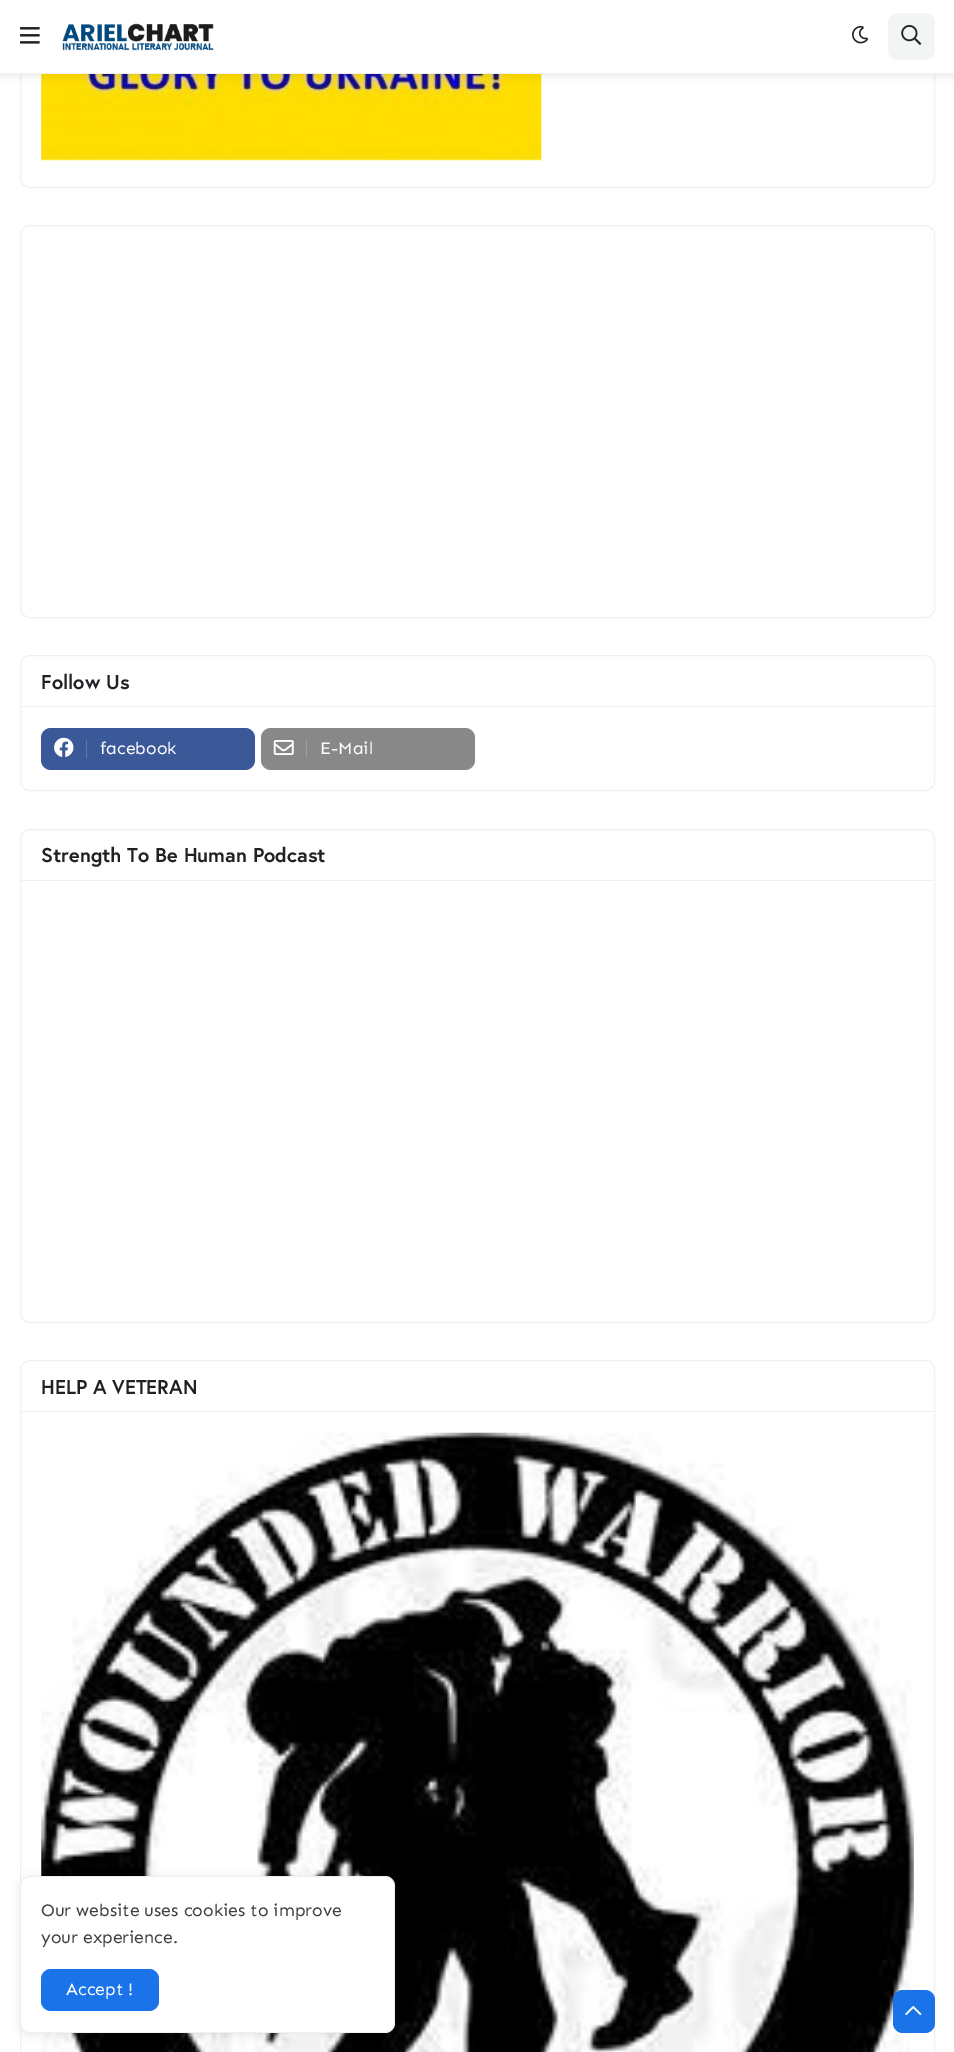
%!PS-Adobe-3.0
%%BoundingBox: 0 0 954 2052
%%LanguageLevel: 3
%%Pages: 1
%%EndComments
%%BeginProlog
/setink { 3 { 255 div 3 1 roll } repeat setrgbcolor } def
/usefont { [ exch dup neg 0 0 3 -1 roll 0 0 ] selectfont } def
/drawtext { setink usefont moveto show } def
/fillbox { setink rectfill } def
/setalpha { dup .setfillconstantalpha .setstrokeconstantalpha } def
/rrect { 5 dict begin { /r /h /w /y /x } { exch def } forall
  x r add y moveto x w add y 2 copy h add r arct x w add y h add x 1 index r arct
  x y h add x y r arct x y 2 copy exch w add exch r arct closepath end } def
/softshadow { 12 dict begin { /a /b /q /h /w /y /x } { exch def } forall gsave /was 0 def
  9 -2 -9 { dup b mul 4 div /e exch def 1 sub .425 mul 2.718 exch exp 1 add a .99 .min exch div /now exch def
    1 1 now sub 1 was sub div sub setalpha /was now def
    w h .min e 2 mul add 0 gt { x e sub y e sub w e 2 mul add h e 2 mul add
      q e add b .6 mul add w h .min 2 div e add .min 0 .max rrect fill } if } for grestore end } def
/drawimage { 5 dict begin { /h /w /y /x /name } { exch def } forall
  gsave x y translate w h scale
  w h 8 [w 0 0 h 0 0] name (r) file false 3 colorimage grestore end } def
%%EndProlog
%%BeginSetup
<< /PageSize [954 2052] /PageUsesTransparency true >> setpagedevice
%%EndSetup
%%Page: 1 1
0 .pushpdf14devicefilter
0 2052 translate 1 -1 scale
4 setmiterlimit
0 0 954 2052 255 255 255 fillbox
240 240 240 setink
20.5 -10.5 914 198 9.5 rrect stroke
(assets/img5.rgb) 41 74 501 87 drawimage
0 0 0 setink
0 1 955 74 0 5 0.1 softshadow
0 0 954 73 255 255 255 fillbox
0 73 954 1 240 240 240 fillbox
(assets/img1.rgb) 20 27 20 17 drawimage
(assets/img2.rgb) 62 23 152 28 drawimage
(assets/img3.rgb) 852 25 16 19 drawimage
243 245 245 setink
888 13 47 47 10 rrect fill
(assets/img4.rgb) 901 25 21 20 drawimage
240 240 240 setink
20.5 225.5 914 392 9.5 rrect stroke
20.5 655.5 914 135 9.5 rrect stroke
21 706 913 1 240 240 240 fillbox
(Follow Us) 41 689 /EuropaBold-Bold 20 32 33 36 drawtext
59 89 153 setink
41 728 214 42 10 rrect fill
(assets/img6.rgb) 54 737 20 20 drawimage
86 740 1 18 98 122 173 fillbox
(facebook) 100 754 /Sen-Regular 17.5 255 255 255 drawtext
136 136 136 setink
261 728 214 42 10 rrect fill
(assets/img7.rgb) 273 740 21 15 drawimage
306 740 1 18 160 160 160 fillbox
(E-Mail) 320 754 /Sen-Regular 17.5 255 255 255 drawtext
240 240 240 setink
20.5 829.5 914 493 9.5 rrect stroke
21 880 913 1 240 240 240 fillbox
(Strength To Be Human Podcast) 41 862 /EuropaBold-Bold 20 32 33 36 drawtext
240 240 240 setink
20.5 1360.5 914 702 9.5 rrect stroke
21 1411 913 1 240 240 240 fillbox
(HELP A VETERAN) 41 1394 /EuropaBold-Bold 20 32 33 36 drawtext
(assets/img8.rgb) 41 1432 873 620 drawimage
0 0 0 setink
20 1878 375 156 10 5 0.1 softshadow
255 255 255 setink
20 1876 375 157 10 rrect fill
0.15 setalpha
155 155 155 setink
20.5 1876.5 374 156 9.5 rrect stroke
1 setalpha
(Our website uses cookies to improve) 41 1916 /Sen-Regular 17.5 60 64 67 drawtext
(your experience.) 41 1943 /Sen-Regular 17.5 60 64 67 drawtext
26 115 232 setink
41 1969 118 42 10 rrect fill
(Accept !) 66 1995 /Sen-Regular 17.5 255 255 255 drawtext
26 115 232 setink
893 1990 42 43 10 rrect fill
(assets/img9.rgb) 905 2005 17 11 drawimage
.poppdf14devicefilter showpage
%%EOF
